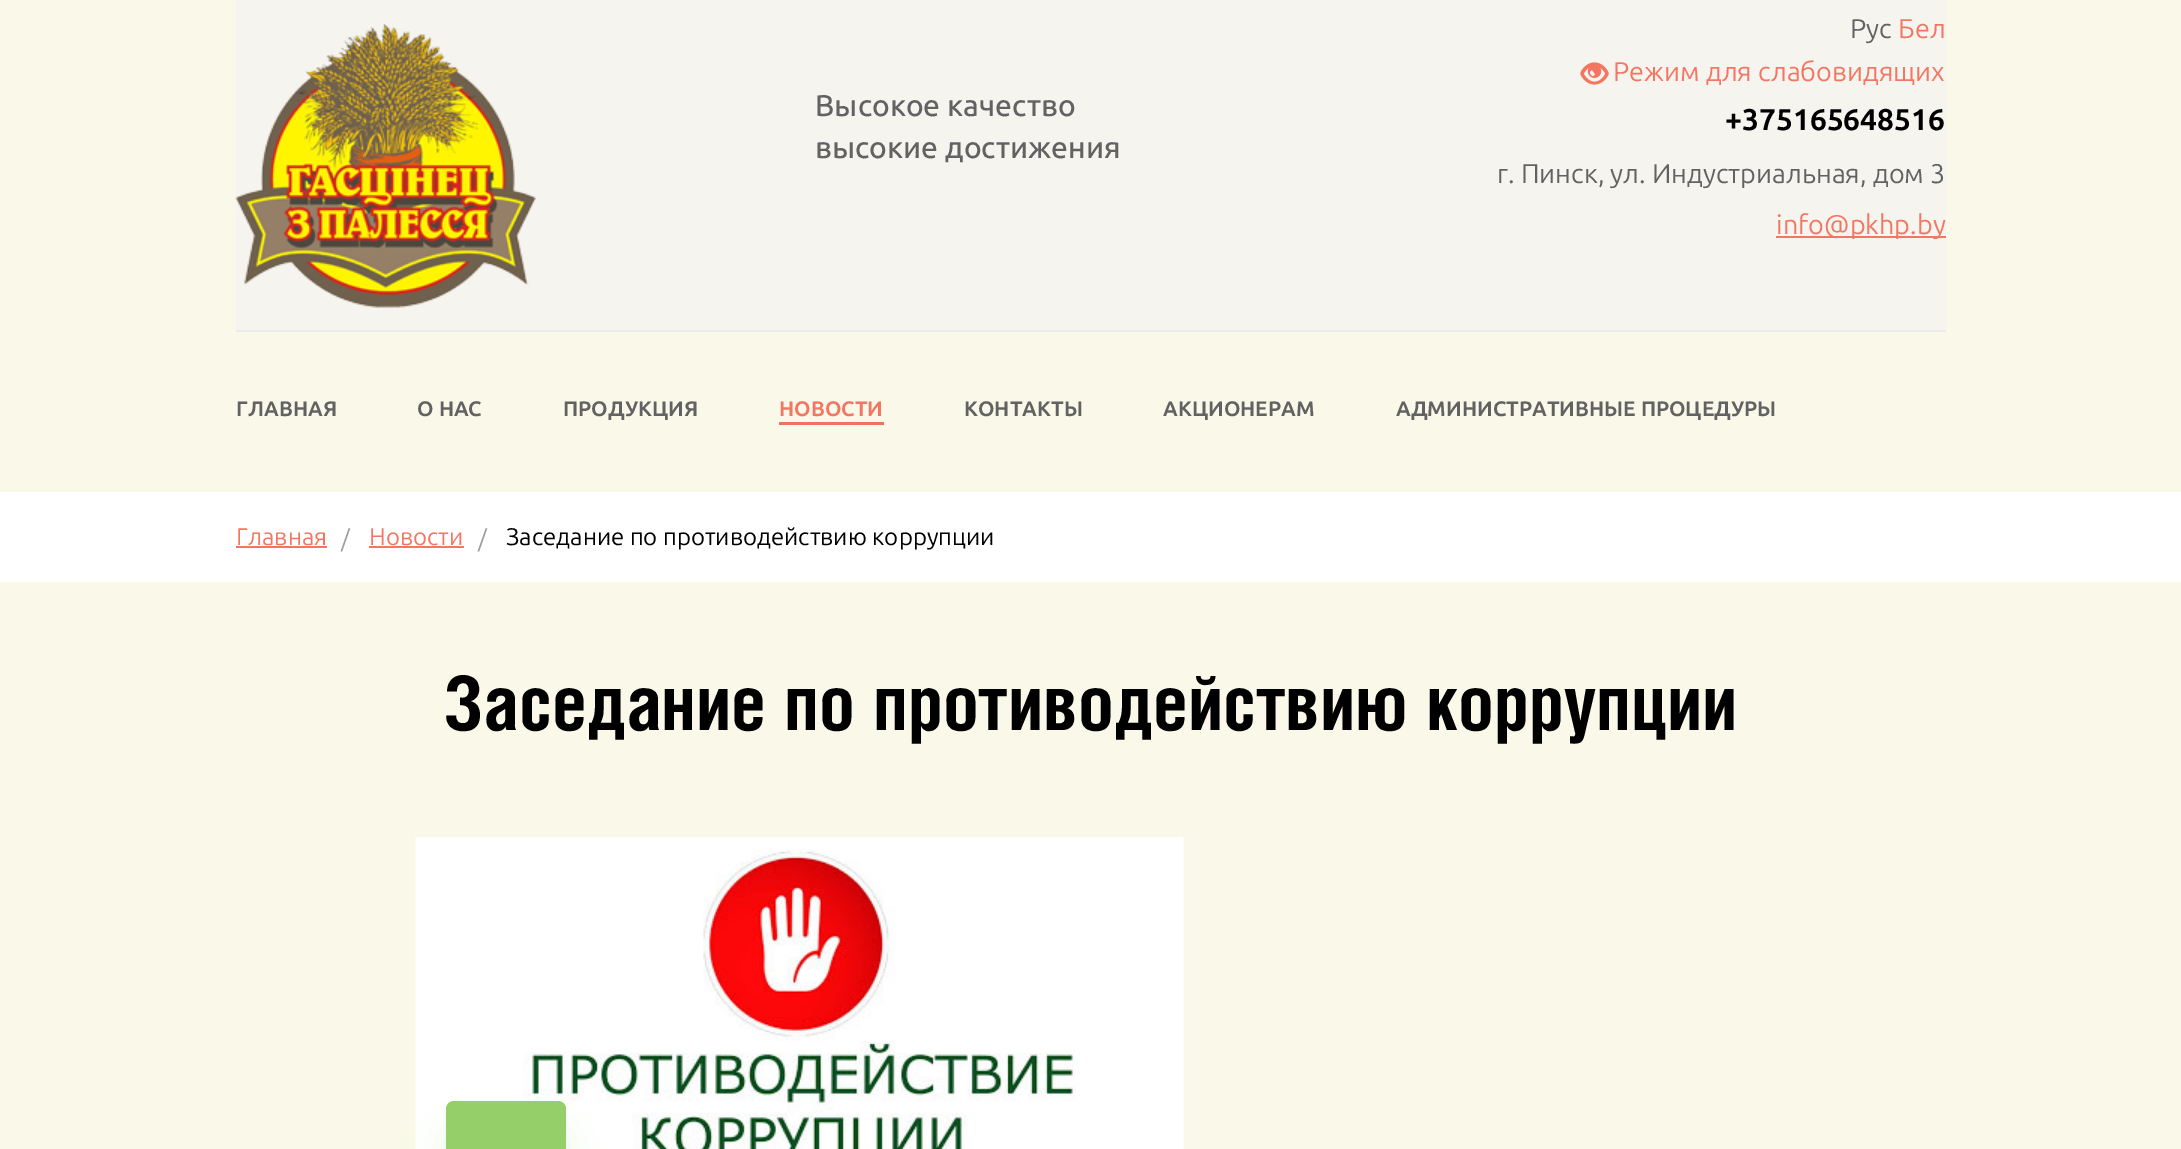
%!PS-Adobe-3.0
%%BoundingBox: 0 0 2181 1149
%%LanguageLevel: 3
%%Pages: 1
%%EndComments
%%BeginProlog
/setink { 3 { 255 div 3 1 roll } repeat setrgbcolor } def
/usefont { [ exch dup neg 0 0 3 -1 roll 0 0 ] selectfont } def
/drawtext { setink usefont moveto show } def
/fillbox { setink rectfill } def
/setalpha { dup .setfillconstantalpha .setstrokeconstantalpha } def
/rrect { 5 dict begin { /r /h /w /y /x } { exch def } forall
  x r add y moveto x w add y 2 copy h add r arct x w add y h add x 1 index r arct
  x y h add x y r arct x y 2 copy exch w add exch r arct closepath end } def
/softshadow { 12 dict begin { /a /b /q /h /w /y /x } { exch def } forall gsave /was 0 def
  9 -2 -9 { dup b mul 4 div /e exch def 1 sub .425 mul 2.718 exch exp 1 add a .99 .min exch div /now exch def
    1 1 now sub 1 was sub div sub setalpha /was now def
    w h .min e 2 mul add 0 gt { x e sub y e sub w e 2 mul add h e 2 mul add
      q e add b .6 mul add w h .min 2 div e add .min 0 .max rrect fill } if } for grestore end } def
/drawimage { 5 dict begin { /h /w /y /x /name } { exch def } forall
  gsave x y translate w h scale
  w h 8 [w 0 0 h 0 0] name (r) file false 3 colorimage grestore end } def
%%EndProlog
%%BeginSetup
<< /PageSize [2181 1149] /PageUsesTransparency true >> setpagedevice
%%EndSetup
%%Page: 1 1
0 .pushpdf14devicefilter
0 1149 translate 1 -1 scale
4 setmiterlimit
0 0 2181 1149 250 249 233 fillbox
236 0 1710 330 245 244 238 fillbox
236 330 1710 2 235 235 235 fillbox
(assets/img1.rgb) 235 24 301 284 drawimage
(Высокое качество) 815 116 /Ubuntu-Medium 30 98 98 98 drawtext
(высокие достижения) 815 158 /Ubuntu-Medium 30 98 98 98 drawtext
(Рус) 1850 38 /Ubuntu-Regular 27 98 98 98 drawtext
(Бел) 1898 38 /Ubuntu-Regular 27 243 118 98 drawtext
(assets/img2.rgb) 1580 62 29 23 drawimage
(Режим для слабовидящих) 1613 81 /Ubuntu-Regular 27 243 118 98 drawtext
(+375165648516) 1725 130 /Ubuntu-Bold 30 0 0 0 drawtext
(г. Пинск, ул. Индустриальная, дом 3) 1497 183 /Ubuntu-Regular 27 98 98 98 drawtext
1776 236 170 2 243 118 98 fillbox
(info@pkhp.by) 1776 234 /Ubuntu-Regular 27 243 118 98 drawtext
(ГЛАВНАЯ) 236 416 /Ubuntu-Bold 21 98 98 98 drawtext
(О НАС) 417 416 /Ubuntu-Bold 21 98 98 98 drawtext
(ПРОДУКЦИЯ) 563 416 /Ubuntu-Bold 21 98 98 98 drawtext
(НОВОСТИ) 779 416 /Ubuntu-Bold 21 243 118 98 drawtext
779 422 105 3 243 114 93 fillbox
(КОНТАКТЫ) 964 416 /Ubuntu-Bold 21 98 98 98 drawtext
(АКЦИОНЕРАМ) 1163 416 /Ubuntu-Bold 21 98 98 98 drawtext
(АДМИНИСТРАТИВНЫЕ ПРОЦЕДУРЫ) 1396 416 /Ubuntu-Bold 21 98 98 98 drawtext
0 492 2181 90 255 255 255 fillbox
(Главная) 236 545 /Ubuntu-Regular 24 243 118 98 drawtext
236 546 91 2 243 118 98 fillbox
(/) 341 547 /Ubuntu-Regular 24 157 156 155 drawtext
(Новости) 369 545 /Ubuntu-Regular 24 243 118 98 drawtext
369 546 95 2 243 118 98 fillbox
(/) 478 547 /Ubuntu-Regular 24 157 156 155 drawtext
(Заседание по противодействию коррупции) 506 545 /Ubuntu-Regular 24 0 0 0 drawtext
(Заседание по противодействию коррупции) 444 730 /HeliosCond-Bold 75 0 0 0 drawtext
(assets/img3.rgb) 415 837 769 312 drawimage
149 207 105 setink
446 1131 120 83 8 19 0.2 softshadow
446 1101 120 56 8 rrect fill
.poppdf14devicefilter showpage
%%EOF
